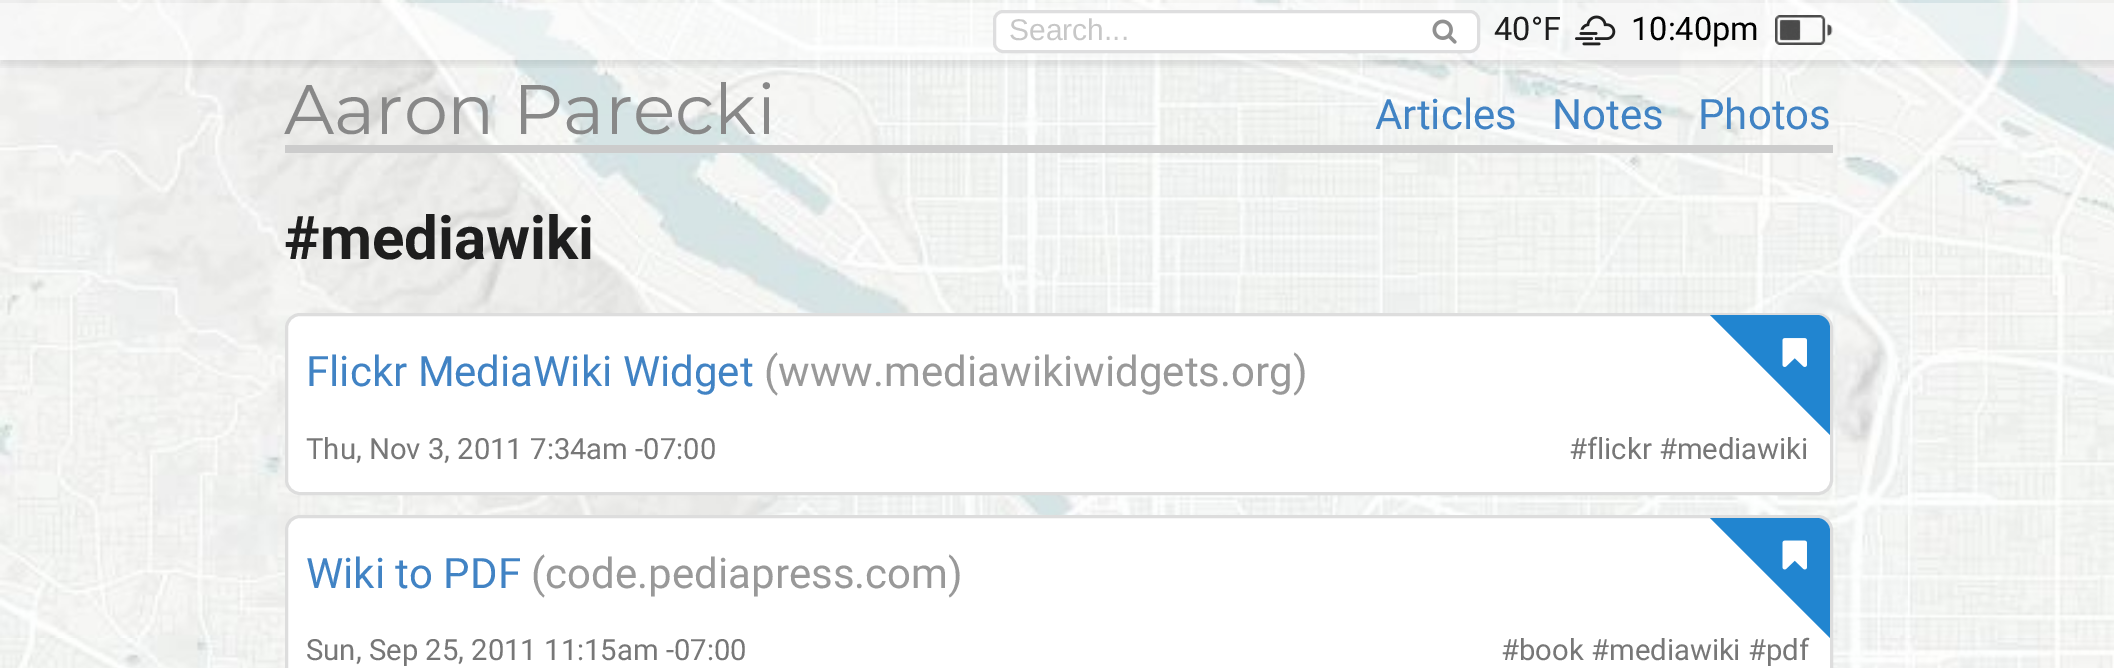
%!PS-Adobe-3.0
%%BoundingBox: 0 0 2114 668
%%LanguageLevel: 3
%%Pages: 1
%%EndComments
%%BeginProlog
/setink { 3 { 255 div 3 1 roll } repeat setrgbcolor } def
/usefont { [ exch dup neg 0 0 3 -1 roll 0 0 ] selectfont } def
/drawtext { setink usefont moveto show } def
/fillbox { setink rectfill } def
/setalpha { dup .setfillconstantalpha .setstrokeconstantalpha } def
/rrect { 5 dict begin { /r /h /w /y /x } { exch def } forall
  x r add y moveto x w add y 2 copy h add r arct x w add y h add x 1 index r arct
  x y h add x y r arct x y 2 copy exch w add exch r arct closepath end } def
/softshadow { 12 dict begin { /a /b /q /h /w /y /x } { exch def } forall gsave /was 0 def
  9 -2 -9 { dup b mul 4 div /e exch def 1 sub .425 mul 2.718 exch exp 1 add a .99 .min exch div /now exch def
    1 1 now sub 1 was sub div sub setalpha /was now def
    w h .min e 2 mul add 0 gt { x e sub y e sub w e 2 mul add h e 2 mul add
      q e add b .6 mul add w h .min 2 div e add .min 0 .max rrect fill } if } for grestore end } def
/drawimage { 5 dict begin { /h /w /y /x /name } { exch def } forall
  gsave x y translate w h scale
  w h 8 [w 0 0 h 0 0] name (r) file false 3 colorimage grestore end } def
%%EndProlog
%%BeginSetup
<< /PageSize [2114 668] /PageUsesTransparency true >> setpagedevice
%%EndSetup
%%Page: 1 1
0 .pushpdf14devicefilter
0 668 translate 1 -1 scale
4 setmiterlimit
0 0 2114 668 255 255 255 fillbox
(assets/img1.rgb) 0 0 2114 668 drawimage
gsave
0 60 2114 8 rectclip
0 0 0 setink
0 8 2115 57 0 4 0.1 softshadow
grestore
0.5 setalpha
0 3 2114 57 255 255 255 fillbox
1 setalpha
993 10 487 43 10 rrect fill
0.15 setalpha
34 36 38 setink
3 setlinewidth
994.5 11.5 484 40 8.5 rrect stroke
1 setalpha
(Search...) 1009 40 /LiberationSans-Regular 30 199 199 199 drawtext
(assets/img2.rgb) 1432 19 25 25 drawimage
(40°F) 1494 40 /Roboto-Regular 32.5 30 30 30 drawtext
(assets/img3.rgb) 1575 15 41 31 drawimage
(10:40pm) 1631 40 /Roboto-Regular 32.5 0 0 0 drawtext
(assets/img4.rgb) 1775 15 58 30 drawimage
285 145 1548 8 204 204 204 fillbox
(Aaron Parecki) 284 134 /Montserrat-Regular 70 136 136 136 drawtext
(Articles) 1375 129 /Roboto-Regular 42 65 131 196 drawtext
(Notes) 1552 129 /Roboto-Regular 42 65 131 196 drawtext
(Photos) 1698 129 /Roboto-Regular 42 65 131 196 drawtext
(#mediawiki) 284 259 /Roboto-Bold 60 30 30 30 drawtext
255 255 255 setink
286.5 314.5 1545 179 13.5 rrect gsave fill grestore
221 221 221 setink
stroke
(Flickr MediaWiki Widget) 306 386 /Roboto-Regular 42 65 131 196 drawtext
(\(www.mediawikiwidgets.org\)) 764 386 /Roboto-Regular 42 153 153 153 drawtext
33 133 208 setink
1830 435 moveto 1830 328 lineto 1830 321 1824 315 1817 315 curveto 1710 315 lineto closepath fill
(assets/img5.rgb) 1782 338 25 29 drawimage
(Thu, Nov 3, 2011 7:34am -07:00) 306 459 /Roboto-Regular 29.25 119 119 119 drawtext
(#flickr #mediawiki) 1569 459 /Roboto-Regular 29.25 119 119 119 drawtext
255 255 255 setink
286.5 516.5 1545 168 13.5 rrect gsave fill grestore
221 221 221 setink
stroke
(Wiki to PDF) 306 588 /Roboto-Regular 42 65 131 196 drawtext
(\(code.pediapress.com\)) 531 588 /Roboto-Regular 42 153 153 153 drawtext
33 133 208 setink
1830 638 moveto 1830 531 lineto 1830 524 1824 518 1817 518 curveto 1710 518 lineto closepath fill
(assets/img6.rgb) 1782 540 25 30 drawimage
(Sun, Sep 25, 2011 11:15am -07:00) 306 660 /Roboto-Regular 29.25 119 119 119 drawtext
(#book #mediawiki #pdf) 1501 660 /Roboto-Regular 29.25 119 119 119 drawtext
.poppdf14devicefilter showpage
%%EOF
